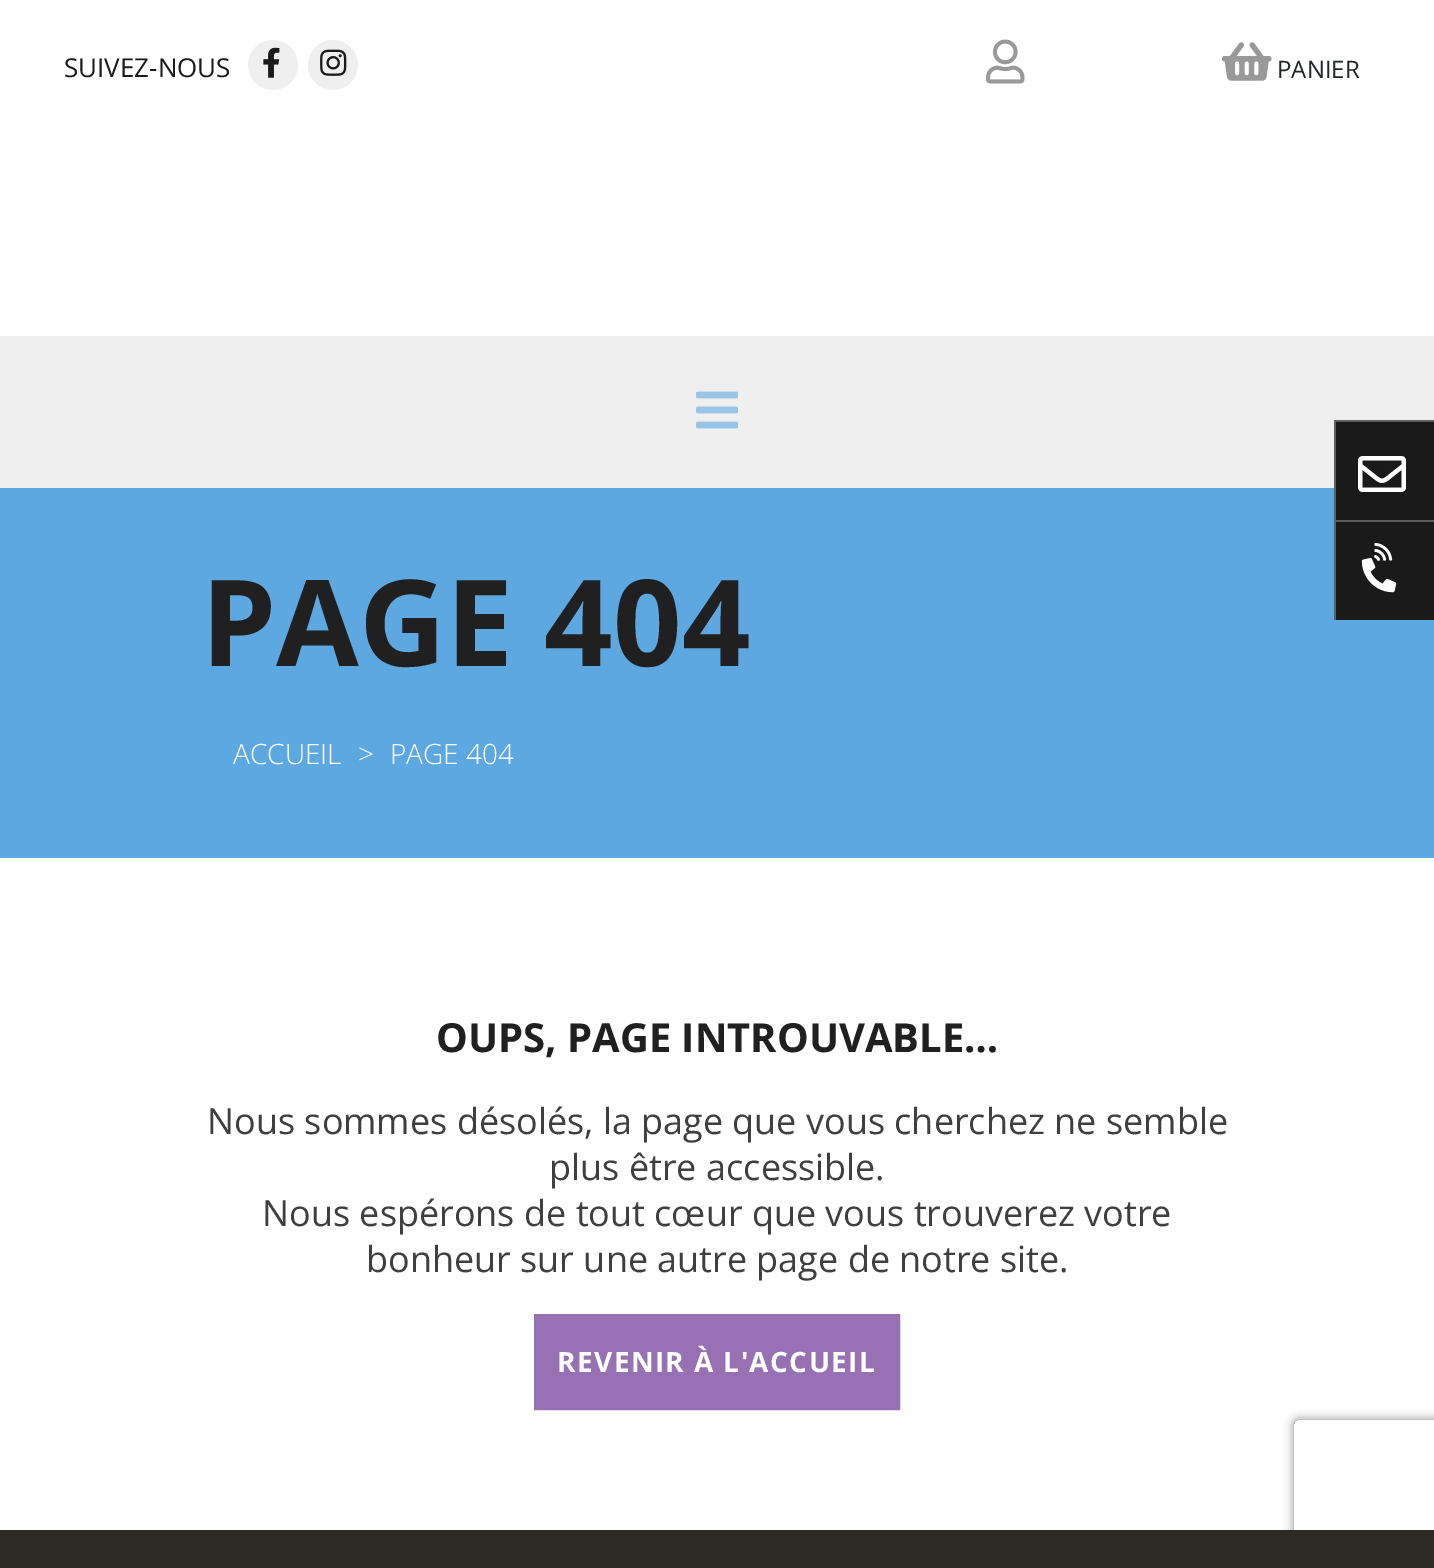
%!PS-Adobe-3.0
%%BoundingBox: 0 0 1434 1568
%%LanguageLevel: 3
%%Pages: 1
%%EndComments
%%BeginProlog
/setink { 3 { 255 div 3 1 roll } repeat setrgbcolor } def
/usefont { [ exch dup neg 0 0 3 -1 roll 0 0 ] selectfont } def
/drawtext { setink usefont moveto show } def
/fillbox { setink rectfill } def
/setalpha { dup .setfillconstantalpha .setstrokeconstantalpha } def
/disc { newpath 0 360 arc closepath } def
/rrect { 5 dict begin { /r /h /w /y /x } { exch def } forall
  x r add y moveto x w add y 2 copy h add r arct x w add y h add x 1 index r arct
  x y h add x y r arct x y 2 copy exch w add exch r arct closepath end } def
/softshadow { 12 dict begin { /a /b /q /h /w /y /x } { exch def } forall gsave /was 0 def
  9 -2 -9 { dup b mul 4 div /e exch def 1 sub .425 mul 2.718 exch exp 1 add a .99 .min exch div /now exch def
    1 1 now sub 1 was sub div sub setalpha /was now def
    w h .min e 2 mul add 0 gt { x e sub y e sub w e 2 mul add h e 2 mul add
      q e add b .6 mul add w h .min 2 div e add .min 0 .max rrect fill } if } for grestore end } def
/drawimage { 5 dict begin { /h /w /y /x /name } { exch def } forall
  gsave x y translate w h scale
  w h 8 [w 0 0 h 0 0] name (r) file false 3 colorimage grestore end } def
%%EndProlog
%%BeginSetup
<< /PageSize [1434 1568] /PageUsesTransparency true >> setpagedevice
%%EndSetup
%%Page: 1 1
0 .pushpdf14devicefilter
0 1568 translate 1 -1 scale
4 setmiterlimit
0 0 1434 1568 255 255 255 fillbox
(SUIVEZ-NOUS) 64 77 /OpenSans-Regular 26 26 26 26 drawtext
239 239 239 setink
273 65 25 disc fill
(assets/img1.rgb) 263 47 17 31 drawimage
333 65 25 disc fill
(assets/img2.rgb) 320 49 27 27 drawimage
(assets/img3.rgb) 986 39 39 45 drawimage
(assets/img4.rgb) 1222 42 50 39 drawimage
(PANIER) 1277 78 /OpenSans-Regular 24 33 37 41 drawtext
0 336 1434 152 239 239 239 fillbox
(assets/img5.rgb) 696 391 42 38 drawimage
0 488 1434 370 94 168 225 fillbox
1334 420 100 200 26 26 26 fillbox
95 95 95 setink
1334 420 moveto 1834 420 lineto 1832 422 lineto 1336 422 lineto closepath fill
0.3 setalpha
255 255 255 setink
1334 520 moveto 1334 420 lineto 1336 422 lineto 1336 520 lineto closepath fill
1 setalpha
(assets/img6.rgb) 1358 456 48 36 drawimage
95 95 95 setink
1334 520 moveto 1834 520 lineto 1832 522 lineto 1336 522 lineto closepath fill
0.3 setalpha
255 255 255 setink
1334 620 moveto 1334 520 lineto 1336 522 lineto 1336 620 lineto closepath fill
1 setalpha
(assets/img7.rgb) 1361 542 36 51 drawimage
(PAGE 404) 201 666 /OpenSans-Bold 120 32 32 32 drawtext
(ACCUEIL) 233 764 /OpenSans-Light 28 255 255 255 drawtext
(>) 358 764 /OpenSans-Light 28 255 255 255 drawtext
(PAGE 404) 390 764 /OpenSans-Light 28 255 255 255 drawtext
(OUPS, PAGE INTROUVABLE…) 436 1052 /OpenSans-Bold 40 32 32 32 drawtext
(Nous sommes désolés, la page que vous cherchez ne semble) 207 1134 /OpenSans-Regular 36 64 63 63 drawtext
(plus être accessible.) 549 1180 /OpenSans-Regular 36 64 63 63 drawtext
(Nous espérons de tout cœur que vous trouverez votre) 262 1226 /OpenSans-Regular 36 64 63 63 drawtext
(bonheur sur une autre page de notre site.) 366 1272 /OpenSans-Regular 36 64 63 63 drawtext
gsave 538 1318 moveto 896 1318 lineto 896 1406 lineto 538 1406 lineto closepath clip newpath
<< /ShadingType 2 /ColorSpace /DeviceRGB /Coords [1156 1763 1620 961] /Extend [true true] /Function << /FunctionType 3 /Domain [0 1] /Functions [<< /FunctionType 2 /Domain [0 1] /C0 [0.592 0.443 0.702] /C1 [0.592 0.443 0.702] /N 1 >> << /FunctionType 2 /Domain [0 1] /C0 [1 1 1] /C1 [1 1 1] /N 1 >>] /Bounds [0.5] /Encode [0 1 0 1] >> >> shfill grestore
151 113 179 setink
4 setlinewidth
536 1316 362 92 rectstroke
/OpenSans-Bold 28 usefont
255 255 255 setink
557 1372 moveto 1.4 0 (REVENIR À L'ACCUEIL) ashow
gsave
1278 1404 moveto 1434 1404 lineto 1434 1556 lineto 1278 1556 lineto closepath 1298 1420 moveto 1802 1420 lineto 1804 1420 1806 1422 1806 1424 curveto 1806 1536 lineto 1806 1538 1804 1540 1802 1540 curveto 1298 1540 lineto 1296 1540 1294 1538 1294 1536 curveto 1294 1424 lineto 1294 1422 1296 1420 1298 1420 curveto closepath eoclip newpath
128 128 128 setink
1294 1420 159 120 4 5 1 softshadow
grestore
0 1530 1434 38 45 42 37 fillbox
.poppdf14devicefilter showpage
%%EOF
